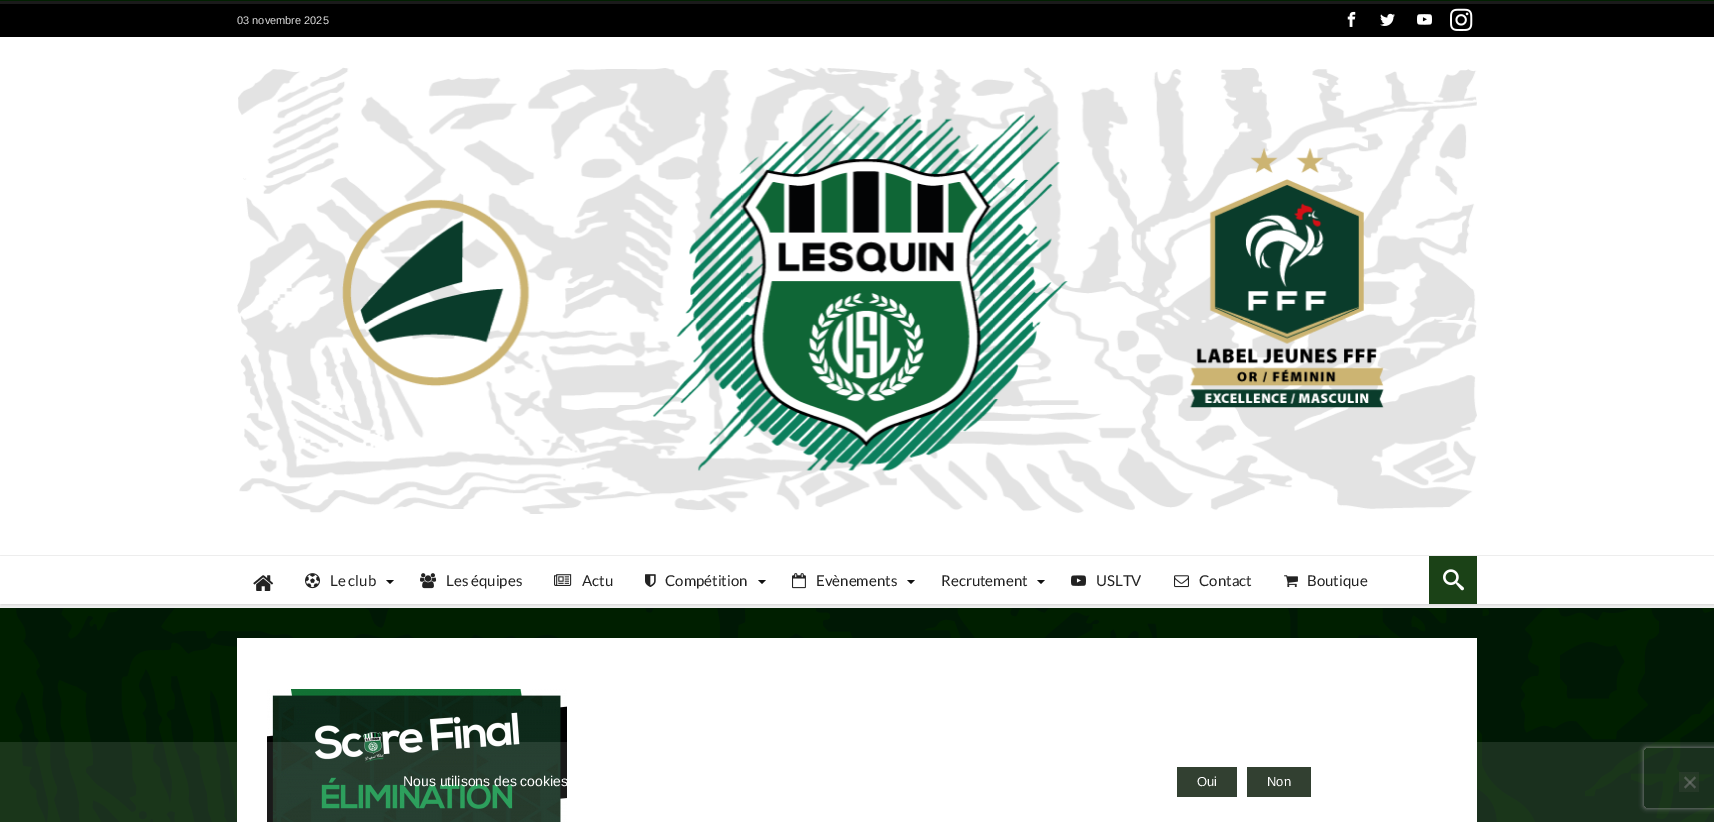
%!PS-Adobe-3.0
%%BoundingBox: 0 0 1714 822
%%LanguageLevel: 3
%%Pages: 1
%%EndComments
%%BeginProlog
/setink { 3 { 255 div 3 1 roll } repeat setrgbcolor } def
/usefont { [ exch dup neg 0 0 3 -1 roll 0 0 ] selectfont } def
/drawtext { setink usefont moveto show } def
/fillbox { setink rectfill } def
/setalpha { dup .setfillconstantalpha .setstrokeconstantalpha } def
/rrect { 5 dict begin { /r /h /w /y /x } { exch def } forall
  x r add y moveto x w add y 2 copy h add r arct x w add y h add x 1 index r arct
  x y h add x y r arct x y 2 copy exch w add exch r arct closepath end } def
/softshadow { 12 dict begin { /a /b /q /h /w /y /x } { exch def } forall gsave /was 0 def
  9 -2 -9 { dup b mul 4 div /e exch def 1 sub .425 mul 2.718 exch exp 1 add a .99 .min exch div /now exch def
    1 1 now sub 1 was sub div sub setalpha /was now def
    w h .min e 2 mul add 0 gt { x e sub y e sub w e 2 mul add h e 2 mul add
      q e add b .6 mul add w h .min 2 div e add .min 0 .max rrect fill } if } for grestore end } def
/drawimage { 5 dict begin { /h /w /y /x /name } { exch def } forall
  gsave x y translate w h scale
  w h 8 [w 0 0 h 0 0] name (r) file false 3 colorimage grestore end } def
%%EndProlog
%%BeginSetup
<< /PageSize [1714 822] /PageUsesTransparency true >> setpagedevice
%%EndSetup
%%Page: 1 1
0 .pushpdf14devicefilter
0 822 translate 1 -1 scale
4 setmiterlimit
0 0 1714 822 0 31 0 fillbox
(assets/img1.rgb) 15 608 1699 214 drawimage
0 1 1714 3 26 26 26 fillbox
0 4 1714 33 0 0 0 fillbox
(03 novembre 2025) 237 24 /LiberationSans-Regular 11 221 221 221 drawtext
(assets/img2.rgb) 1347 11 9 16 drawimage
(assets/img3.rgb) 1380 13 15 13 drawimage
(assets/img4.rgb) 1417 14 15 11 drawimage
(assets/img5.rgb) 1450 8 23 23 drawimage
0 37 1714 518 255 255 255 fillbox
(assets/img6.rgb) 237 67 1240 447 drawimage
0 555 1714 53 240 240 240 fillbox
0 0 0 setink
1 557 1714 48 0 1 0.11 softshadow
0 556 1714 48 255 255 255 fillbox
(assets/img7.rgb) 253 575 21 16 drawimage
(assets/img8.rgb) 305 573 15 16 drawimage
(Le club) 330 586 /Lato-Regular 15 34 34 34 drawtext
17 17 17 setink
386 580 moveto 394 580 lineto 390 584 lineto closepath fill
(assets/img9.rgb) 420 573 17 16 drawimage
(Les équipes) 446 586 /Lato-Regular 15 34 34 34 drawtext
(assets/img10.rgb) 554 574 18 12 drawimage
(Actu) 582 586 /Lato-Regular 15 34 34 34 drawtext
(assets/img11.rgb) 645 574 11 13 drawimage
(Compétition) 665 586 /Lato-Regular 15 34 34 34 drawtext
17 17 17 setink
758 580 moveto 766 580 lineto 762 584 lineto closepath fill
(assets/img12.rgb) 792 573 14 16 drawimage
(Evènements) 816 586 /Lato-Regular 15 34 34 34 drawtext
17 17 17 setink
907 580 moveto 915 580 lineto 911 584 lineto closepath fill
(Recrutement) 941 586 /Lato-Regular 15 34 34 34 drawtext
17 17 17 setink
1037 580 moveto 1045 580 lineto 1041 584 lineto closepath fill
(assets/img13.rgb) 1071 575 15 11 drawimage
(USLTV) 1096 586 /Lato-Regular 15 34 34 34 drawtext
(assets/img14.rgb) 1174 575 15 13 drawimage
(Contact) 1199 586 /Lato-Regular 15 34 34 34 drawtext
(assets/img15.rgb) 1284 575 14 13 drawimage
(Boutique) 1307 586 /Lato-Regular 15 34 34 34 drawtext
1429 556 48 48 27 66 23 fillbox
(assets/img16.rgb) 1443 569 21 22 drawimage
237 638 1240 184 255 255 255 fillbox
(assets/img17.rgb) 267 689 300 133 drawimage
gsave
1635 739 moveto 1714 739 lineto 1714 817 lineto 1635 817 lineto closepath 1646 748 moveto 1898 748 lineto 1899 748 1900 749 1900 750 curveto 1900 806 lineto 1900 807 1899 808 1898 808 curveto 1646 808 lineto 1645 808 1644 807 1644 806 curveto 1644 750 lineto 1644 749 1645 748 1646 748 curveto closepath eoclip newpath
128 128 128 setink
1644 748 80 60 2 2.5 1 softshadow
grestore
0.1 setalpha
0 742 1714 80 255 255 255 fillbox
1 setalpha
(Nous utilisons des cookies) 403 786 /LiberationSans-Regular 14 255 255 255 drawtext
1177 767 60 30 50 64 49 fillbox
(Oui) 1197 786 /LiberationSans-Regular 13 255 255 255 drawtext
1247 767 64 30 50 64 49 fillbox
(Non) 1267 786 /LiberationSans-Regular 13 255 255 255 drawtext
0.5 setalpha
1679 772 20 20 50 64 49 fillbox
128 128 128 setink
1694.5 776.5 moveto 1696 778 lineto 1685.5 788.5 lineto 1684 787 lineto closepath fill
1684 778 moveto 1685.5 776.5 lineto 1696 787 lineto 1694.5 788.5 lineto closepath fill
.poppdf14devicefilter showpage
%%EOF
